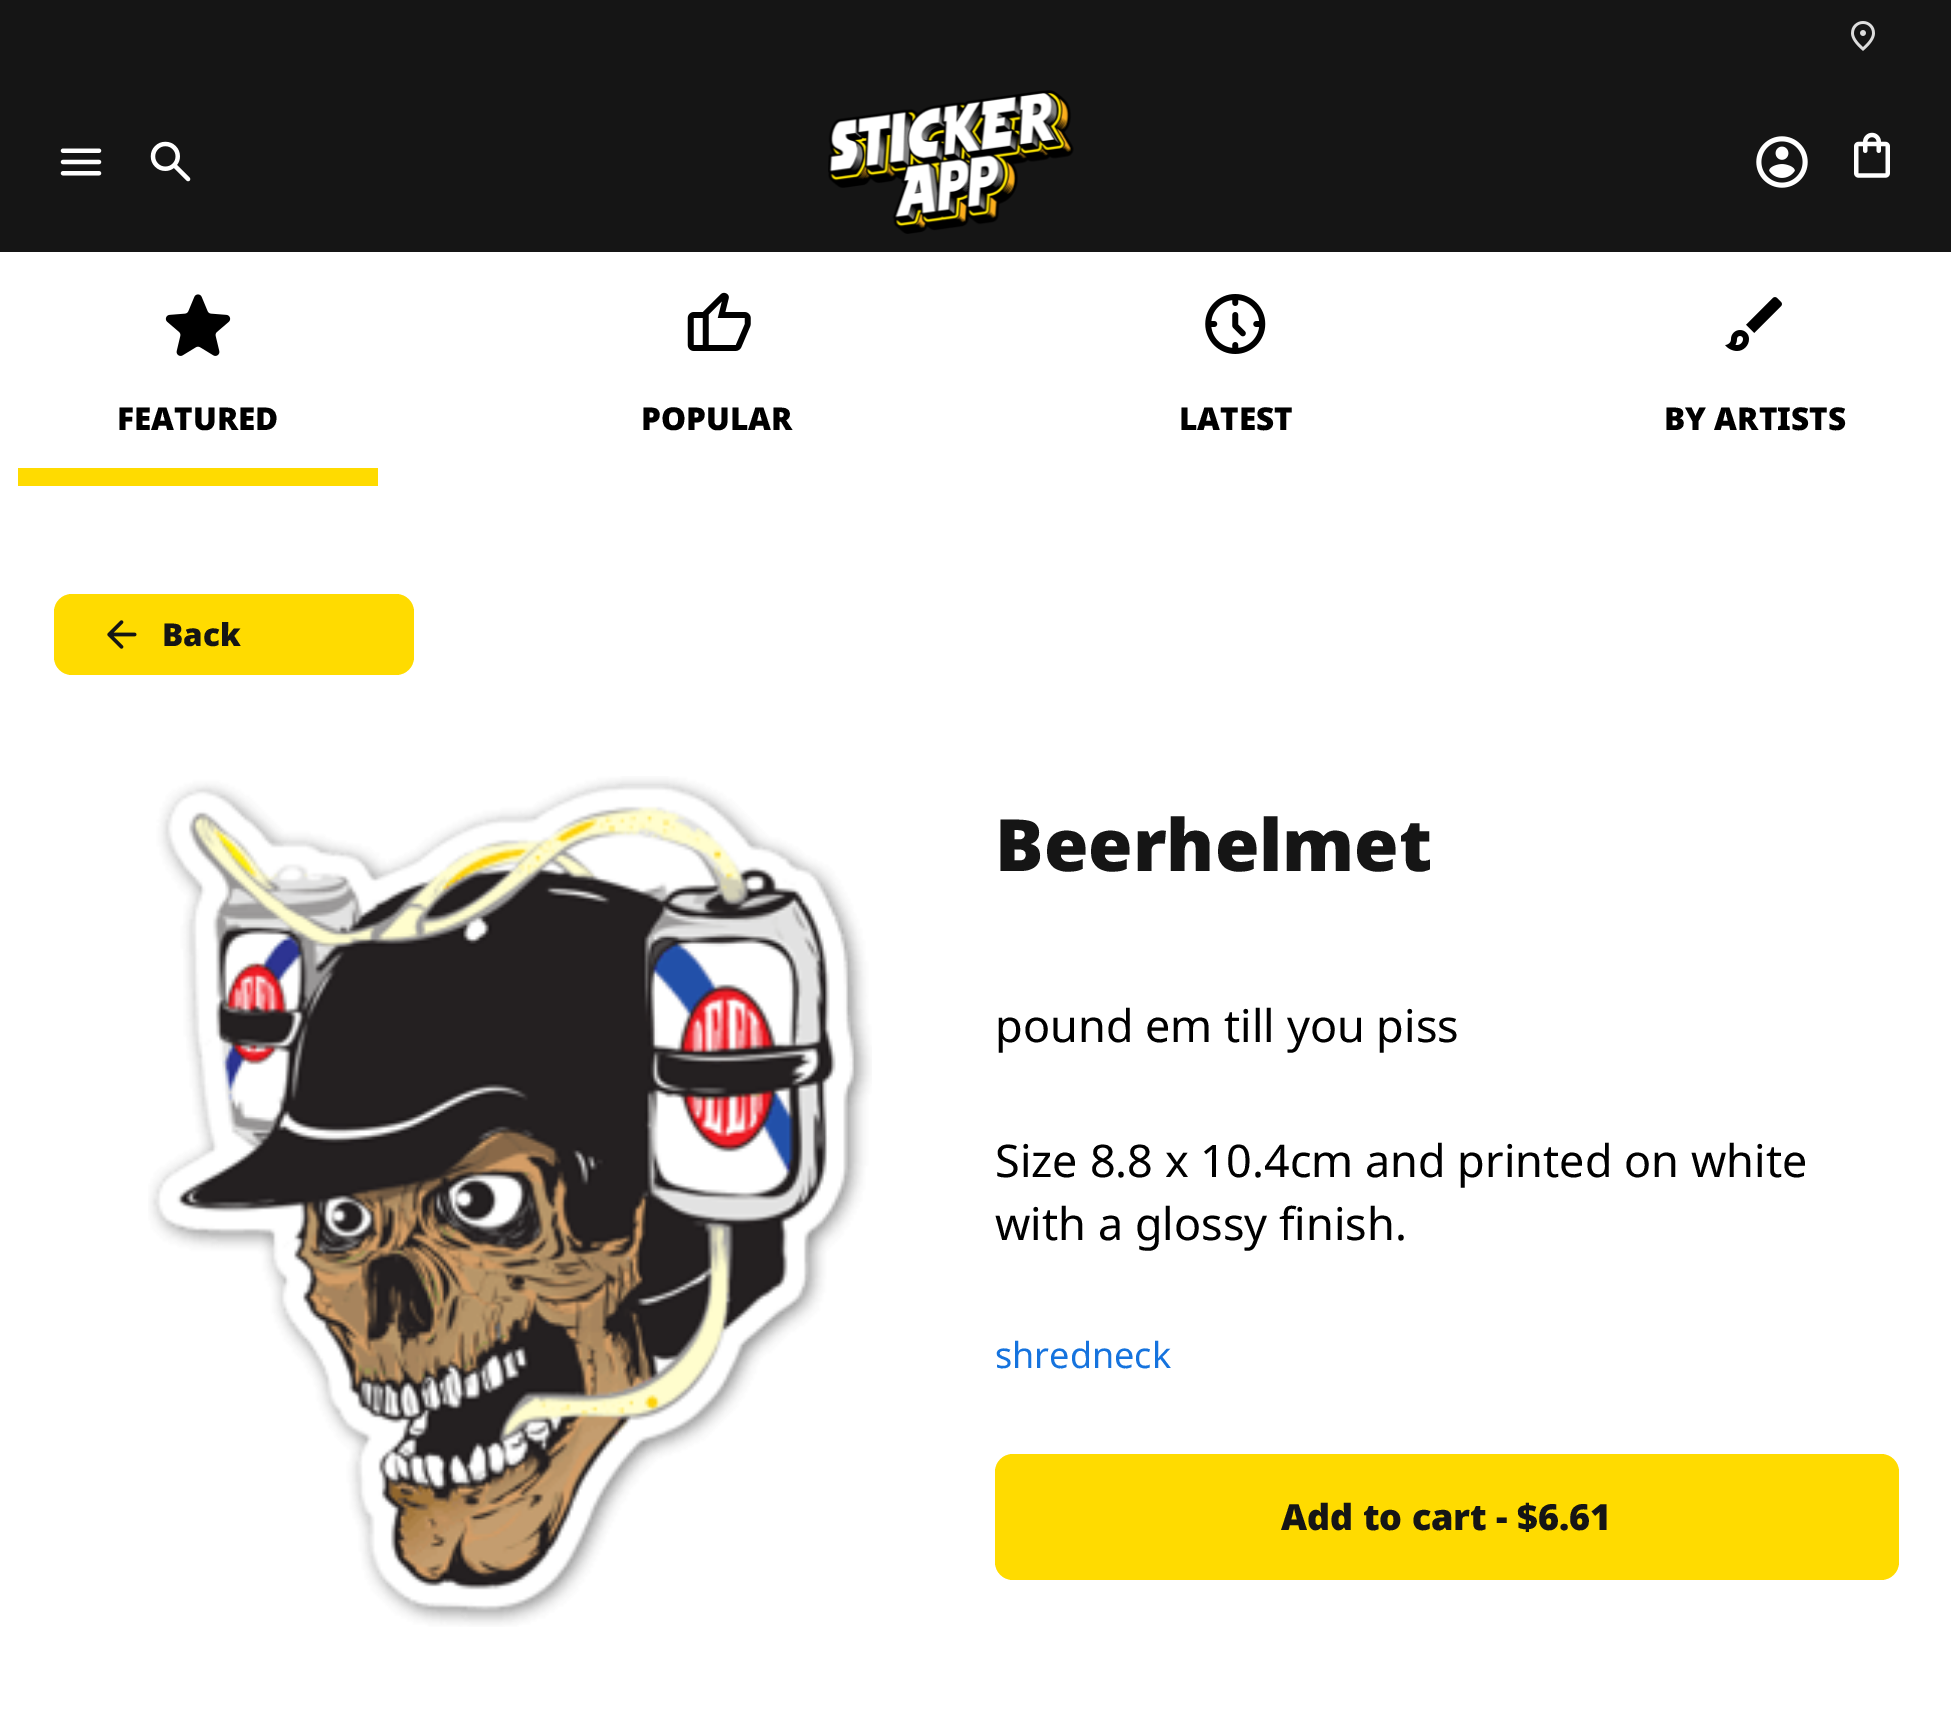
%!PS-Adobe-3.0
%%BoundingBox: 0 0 1951 1716
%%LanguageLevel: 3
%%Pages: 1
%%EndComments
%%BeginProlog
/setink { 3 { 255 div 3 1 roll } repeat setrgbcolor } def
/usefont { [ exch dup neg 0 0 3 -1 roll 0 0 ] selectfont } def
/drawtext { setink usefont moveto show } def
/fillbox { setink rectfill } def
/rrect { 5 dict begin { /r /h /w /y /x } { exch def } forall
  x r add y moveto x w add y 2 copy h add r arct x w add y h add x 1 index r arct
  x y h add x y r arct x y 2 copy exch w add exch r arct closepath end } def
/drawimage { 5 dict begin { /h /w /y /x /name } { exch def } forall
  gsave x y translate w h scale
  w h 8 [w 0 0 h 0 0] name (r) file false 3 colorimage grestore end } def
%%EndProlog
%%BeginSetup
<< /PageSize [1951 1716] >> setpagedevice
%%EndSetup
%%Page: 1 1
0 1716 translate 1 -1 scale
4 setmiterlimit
0 0 1951 1716 255 255 255 fillbox
0 0 1951 252 21 21 21 fillbox
(assets/img1.rgb) 1851 21 24 30 drawimage
(assets/img2.rgb) 60 148 42 28 drawimage
(assets/img3.rgb) 150 141 41 41 drawimage
(assets/img4.rgb) 828 90 246 144 drawimage
(assets/img5.rgb) 1756 136 52 52 drawimage
(assets/img6.rgb) 1854 132 36 46 drawimage
(assets/img7.rgb) 165 294 66 62 drawimage
(FEATURED) 117 430 /NotoSans-Black 31.5 0 0 0 drawtext
18 468 360 18 255 219 0 fillbox
(assets/img8.rgb) 687 292 64 59 drawimage
(POPULAR) 641 430 /NotoSans-Black 31.5 0 0 0 drawtext
(assets/img9.rgb) 1205 294 61 60 drawimage
(LATEST) 1179 430 /NotoSans-Black 31.5 0 0 0 drawtext
(assets/img10.rgb) 1725 297 57 54 drawimage
(BY ARTISTS) 1664 430 /NotoSans-Black 31.5 0 0 0 drawtext
255 219 0 setink
54 594 360 81 18 rrect fill
(assets/img11.rgb) 107 620 30 29 drawimage
(Back) 162 646 /NotoSans-Black 31.5 21 21 21 drawtext
(assets/img12.rgb) 148 776 724 851 drawimage
(Beerhelmet) 995 871 /NotoSans-Black 72 21 21 21 drawtext
(pound em till you piss) 995 1042 /NotoSans-Regular 45 0 0 0 drawtext
(Size 8.8 x 10.4cm and printed on white) 995 1177 /NotoSans-Regular 45 0 0 0 drawtext
(with a glossy finish.) 995 1240 /NotoSans-Regular 45 0 0 0 drawtext
(shredneck) 995 1368 /NotoSans-Regular 36 21 115 222 drawtext
255 219 0 setink
995 1454 904 126 18 rrect fill
(Add to cart - $6.61) 1281 1530 /NotoSans-Black 36 21 21 21 drawtext
showpage
%%EOF
